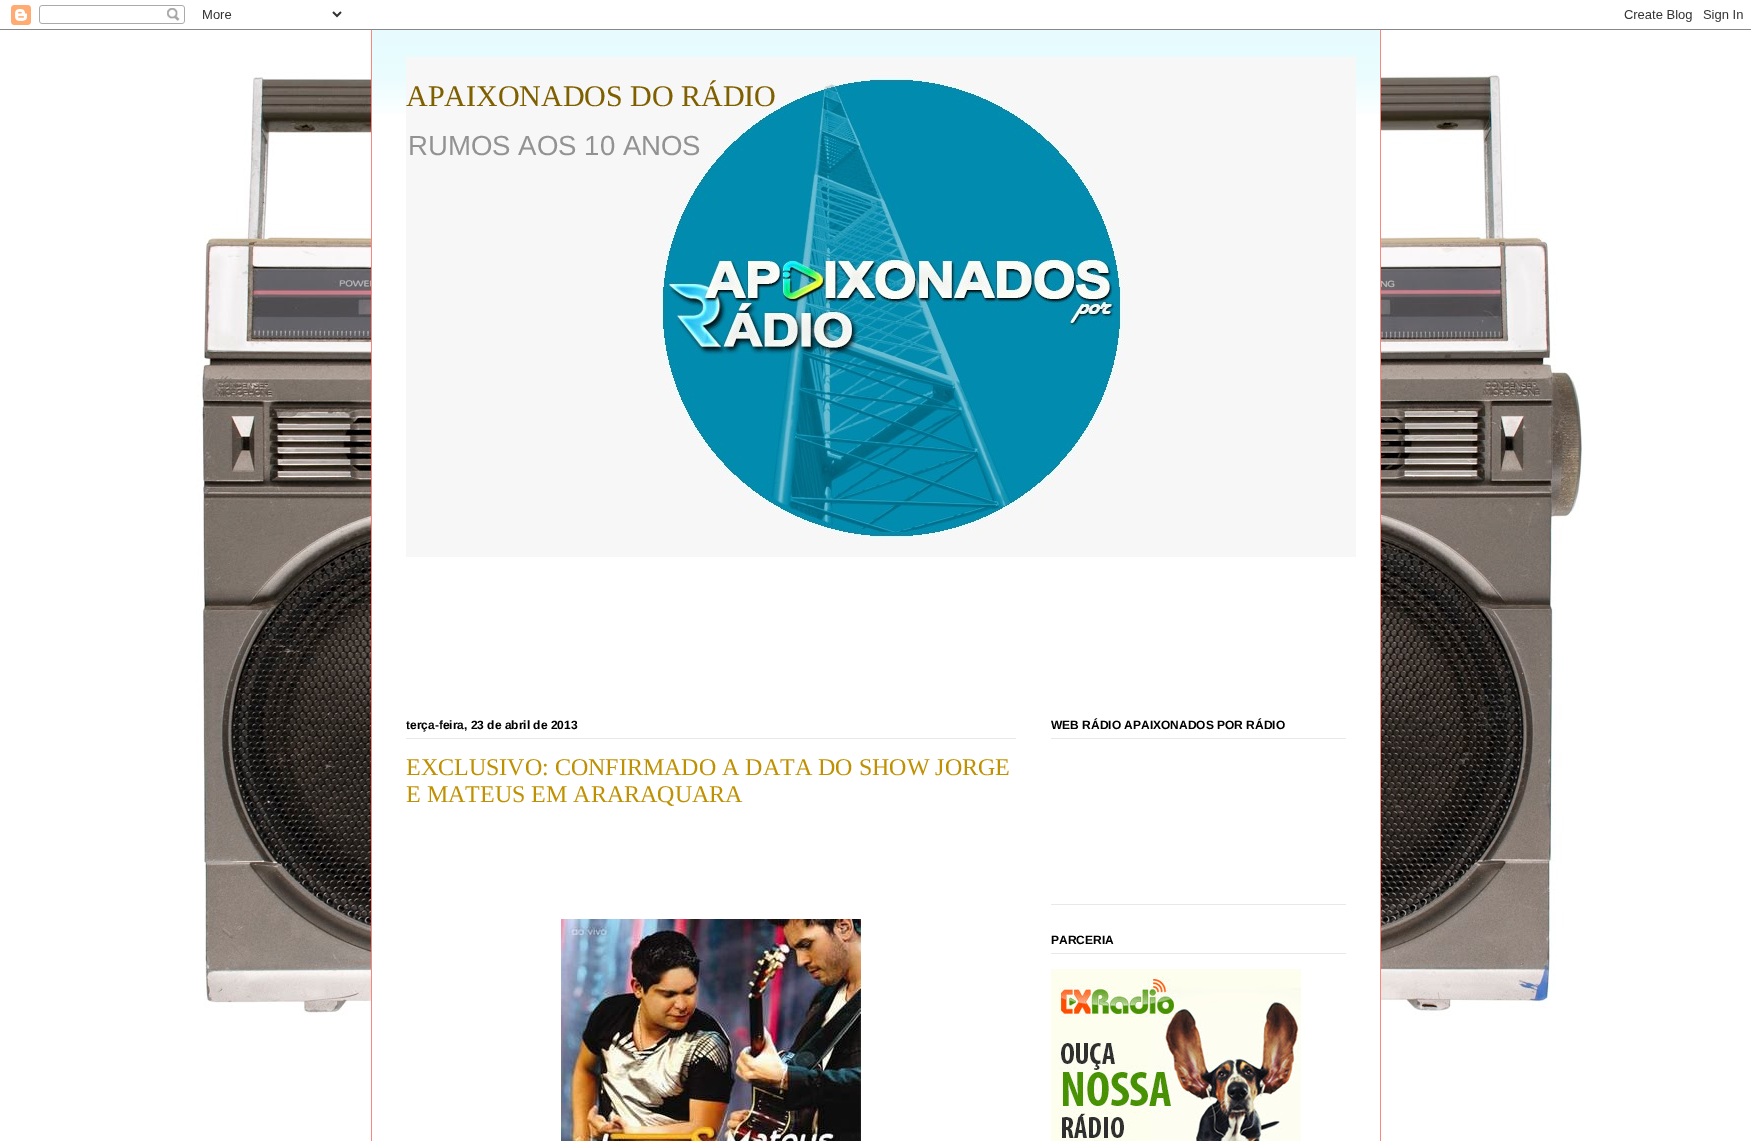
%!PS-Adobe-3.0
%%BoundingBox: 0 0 1751 1141
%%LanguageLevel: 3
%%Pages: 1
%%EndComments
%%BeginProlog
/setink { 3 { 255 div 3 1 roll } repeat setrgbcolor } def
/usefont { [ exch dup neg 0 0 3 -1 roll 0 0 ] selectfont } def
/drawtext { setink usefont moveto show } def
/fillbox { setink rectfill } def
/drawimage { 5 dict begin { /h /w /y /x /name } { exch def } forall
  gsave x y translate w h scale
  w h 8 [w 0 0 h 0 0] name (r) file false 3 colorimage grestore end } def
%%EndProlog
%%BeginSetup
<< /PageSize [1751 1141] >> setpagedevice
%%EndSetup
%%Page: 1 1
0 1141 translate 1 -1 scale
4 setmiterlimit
0 0 1751 1141 255 255 255 fillbox
(assets/img1.rgb) 196 72 1389 944 drawimage
(assets/img2.rgb) 0 5 1751 25 drawimage
372 73 1008 935 255 255 255 fillbox
(assets/img3.rgb) 372 30 1008 84 drawimage
1380 30 1 1111 251 134 125 fillbox
371 30 1 1111 251 134 125 fillbox
(assets/img4.rgb) 406 57 950 500 drawimage
(APAIXONADOS DO RÁDIO) 406 106 /LiberationSerif-Regular 30 127 96 0 drawtext
(RUMOS AOS 10 ANOS) 408 155 /LiberationSans-Regular 27.6 146 146 146 drawtext
406 738 610 1 232 232 232 fillbox
(terça-feira, 23 de abril de 2013) 406 729 /LiberationSans-Bold 12 0 0 0 drawtext
(EXCLUSIVO: CONFIRMADO A DATA DO SHOW JORGE) 406 775 /LiberationSerif-Regular 24 191 144 0 drawtext
(E MATEUS EM ARARAQUARA) 406 802 /LiberationSerif-Regular 24 191 144 0 drawtext
(assets/img5.rgb) 561 919 300 222 drawimage
1051 904 295 1 232 232 232 fillbox
1051 738 295 1 232 232 232 fillbox
(WEB RÁDIO APAIXONADOS POR RÁDIO) 1051 729 /LiberationSans-Bold 12 0 0 0 drawtext
1051 953 295 1 232 232 232 fillbox
(PARCERIA) 1051 944 /LiberationSans-Bold 12 0 0 0 drawtext
(assets/img6.rgb) 1051 969 250 172 drawimage
showpage
%%EOF
